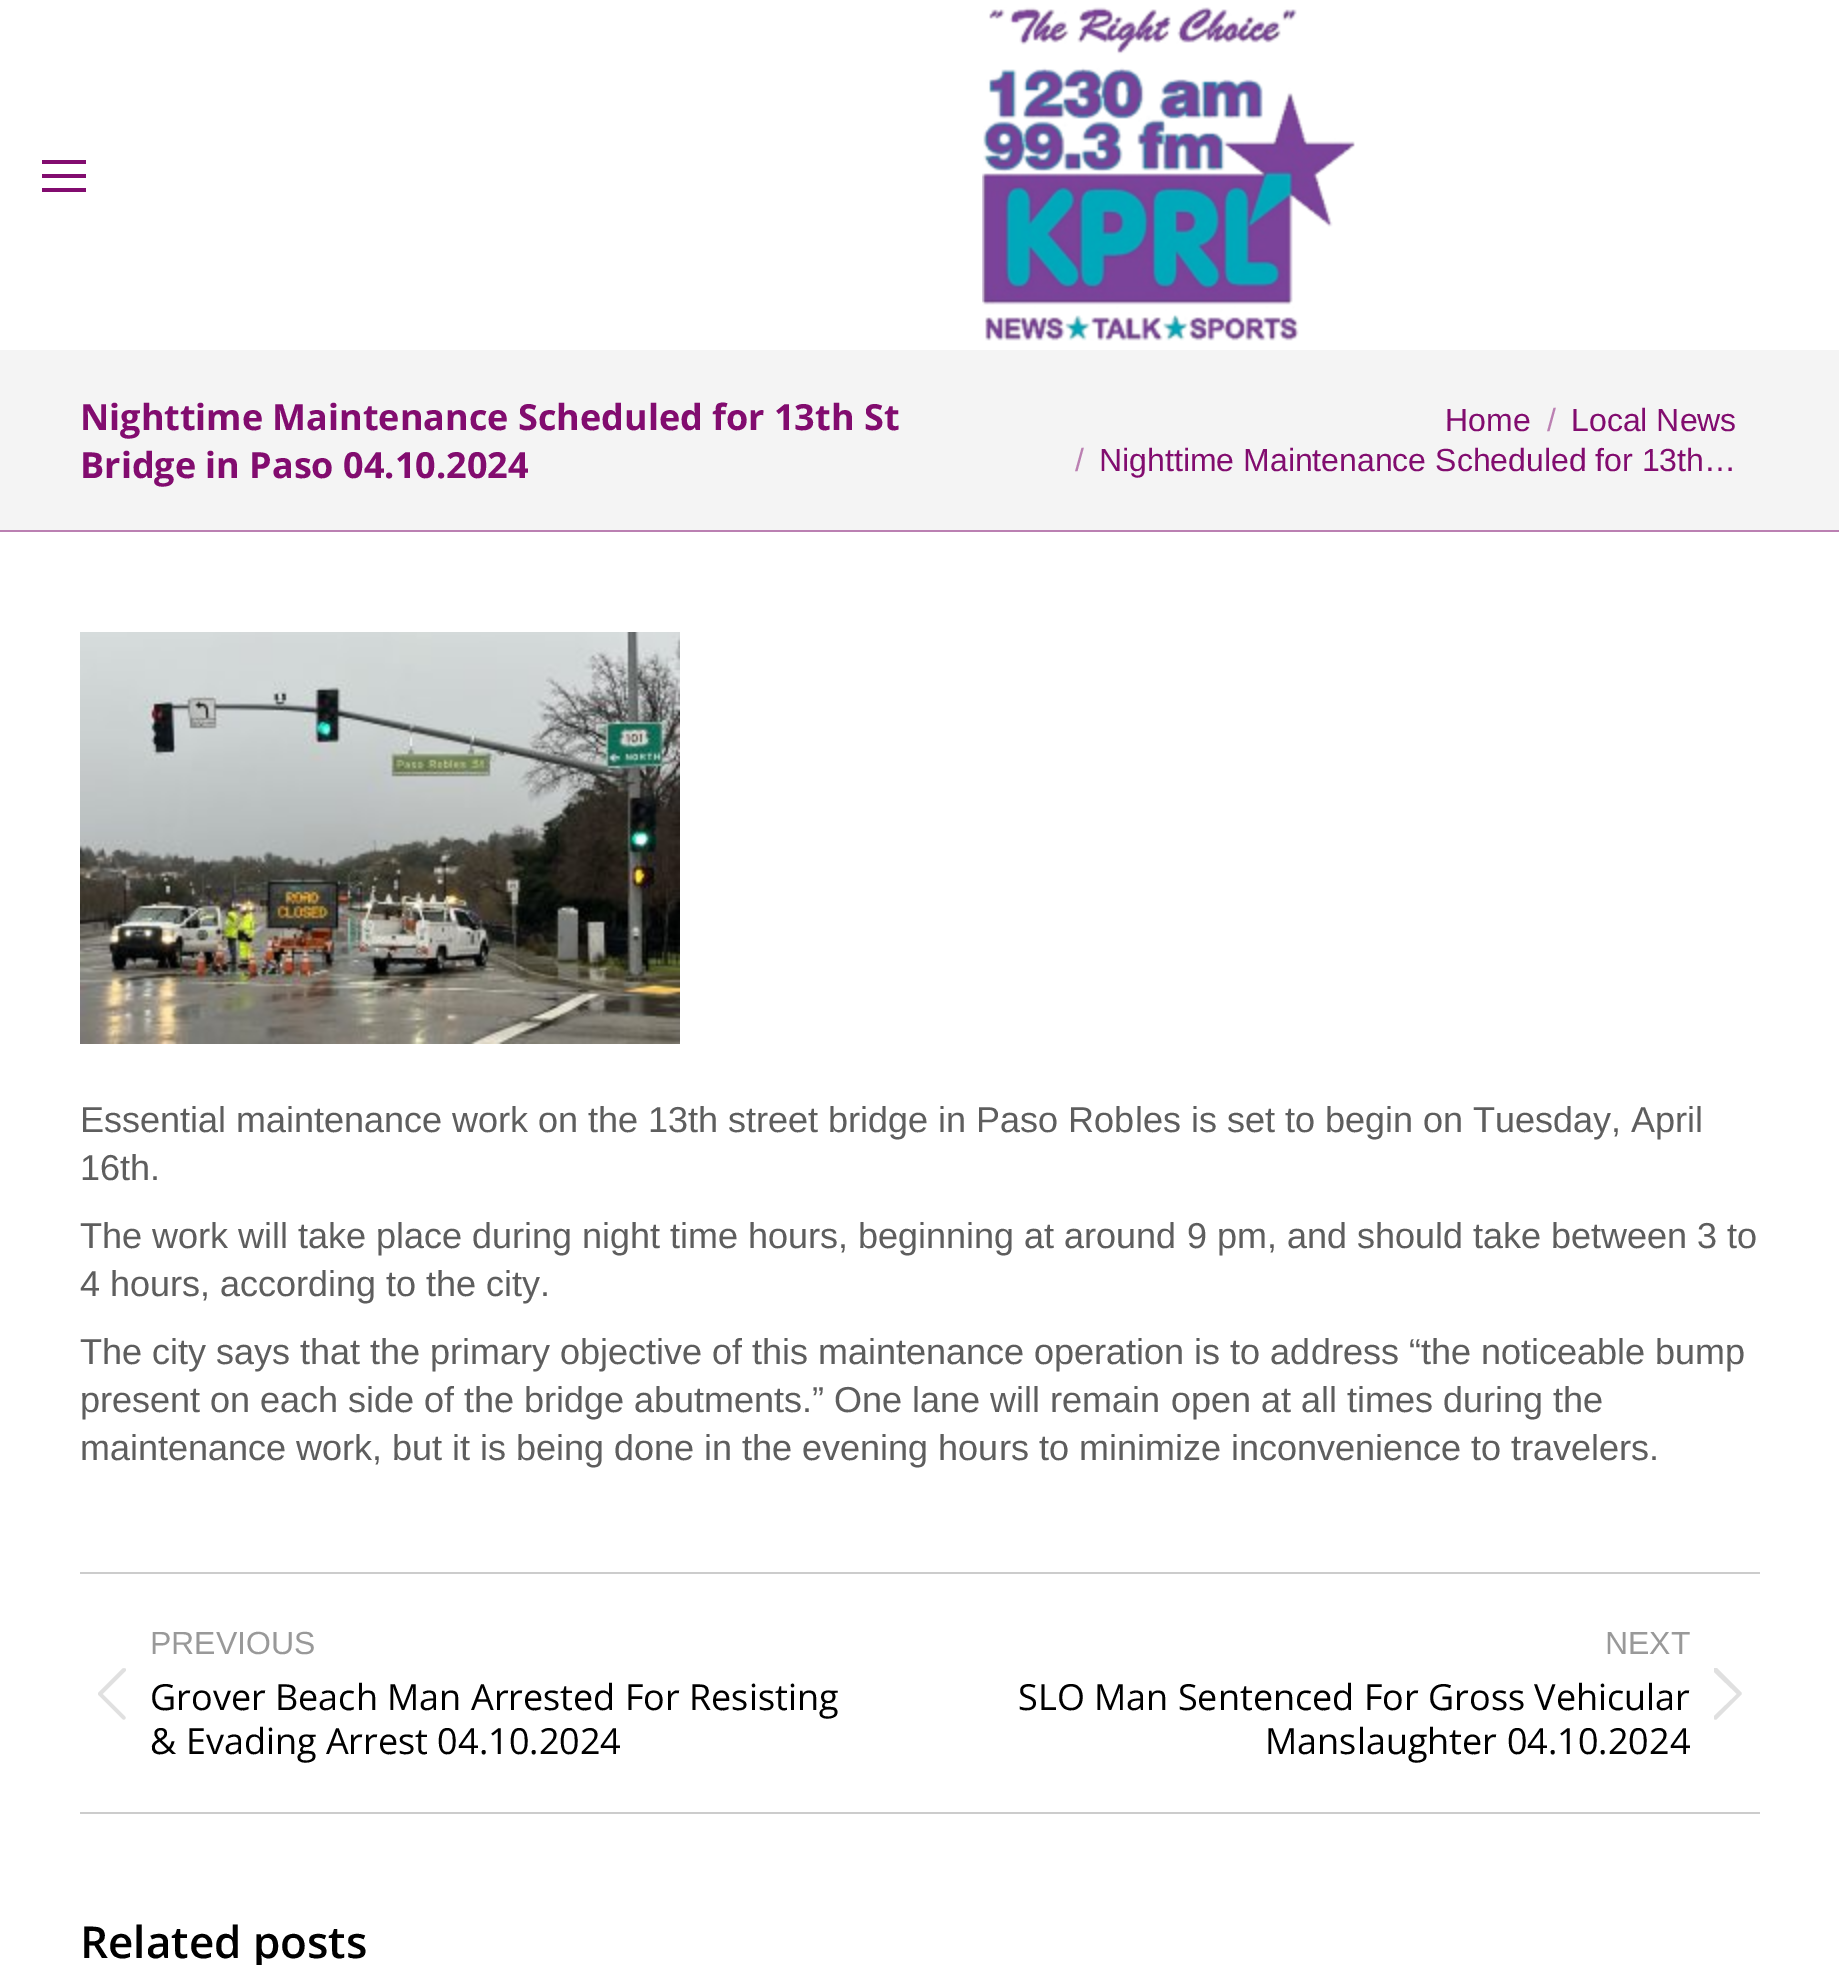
%!PS-Adobe-3.0
%%BoundingBox: 0 0 1839 1965
%%LanguageLevel: 3
%%Pages: 1
%%EndComments
%%BeginProlog
/setink { 3 { 255 div 3 1 roll } repeat setrgbcolor } def
/usefont { [ exch dup neg 0 0 3 -1 roll 0 0 ] selectfont } def
/drawtext { setink usefont moveto show } def
/fillbox { setink rectfill } def
/drawimage { 5 dict begin { /h /w /y /x /name } { exch def } forall
  gsave x y translate w h scale
  w h 8 [w 0 0 h 0 0] name (r) file false 3 colorimage grestore end } def
%%EndProlog
%%BeginSetup
<< /PageSize [1839 1965] >> setpagedevice
%%EndSetup
%%Page: 1 1
0 1965 translate 1 -1 scale
4 setmiterlimit
0 0 1839 1965 255 255 255 fillbox
42 160 44 4 130 12 111 fillbox
42 174 44 4 130 12 111 fillbox
42 188 44 4 130 12 111 fillbox
(assets/img1.rgb) 982 7 373 334 drawimage
0 350 1839 180 244 244 244 fillbox
0 530 1839 2 187 128 178 fillbox
(Nighttime Maintenance Scheduled for 13th St) 80 430 /OpenSans-Bold 36 130 12 111 drawtext
(Bridge in Paso 04.10.2024) 80 478 /OpenSans-Bold 36 130 12 111 drawtext
(Home) 1445 431 /LiberationSans-Regular 32 130 12 111 drawtext
(/) 1547 431 /LiberationSans-Regular 32 187 128 178 drawtext
(Local News) 1571 431 /LiberationSans-Regular 32 130 12 111 drawtext
(/) 1075 471 /LiberationSans-Regular 32 187 128 178 drawtext
(Nighttime Maintenance Scheduled for 13th…) 1099 471 /LiberationSans-Regular 32 130 12 111 drawtext
(assets/img2.rgb) 80 632 600 412 drawimage
(Essential maintenance work on the 13th street bridge in Paso Robles is set to begin on Tuesday, April) 80 1132 /LiberationSans-Regular 36 94 94 94 drawtext
(16th.) 80 1180 /LiberationSans-Regular 36 94 94 94 drawtext
(The work will take place during night time hours, beginning at around 9 pm, and should take between 3 to) 80 1248 /LiberationSans-Regular 36 94 94 94 drawtext
(4 hours, according to the city.) 80 1296 /LiberationSans-Regular 36 94 94 94 drawtext
(The city says that the primary objective of this maintenance operation is to address “the noticeable bump) 80 1364 /LiberationSans-Regular 36 94 94 94 drawtext
(present on each side of the bridge abutments.” One lane will remain open at all times during the) 80 1412 /LiberationSans-Regular 36 94 94 94 drawtext
(maintenance work, but it is being done in the evening hours to minimize inconvenience to travelers.) 80 1460 /LiberationSans-Regular 36 94 94 94 drawtext
80 1572 1680 2 204 204 204 fillbox
80 1812 1680 2 204 204 204 fillbox
(PREVIOUS) 150 1654 /LiberationSans-Regular 32 153 153 153 drawtext
(assets/img3.rgb) 98 1668 28 52 drawimage
(Grover Beach Man Arrested For Resisting) 150 1710 /OpenSans-Regular 36 0 0 0 drawtext
(& Evading Arrest 04.10.2024) 150 1754 /OpenSans-Regular 36 0 0 0 drawtext
(NEXT) 1605 1654 /LiberationSans-Regular 32 153 153 153 drawtext
(SLO Man Sentenced For Gross Vehicular) 1018 1710 /OpenSans-Regular 36 0 0 0 drawtext
(Manslaughter 04.10.2024) 1265 1754 /OpenSans-Regular 36 0 0 0 drawtext
224 224 224 setink
1714 1668 moveto 1715 1668 1716 1668 1717 1668 curveto 1741 1692 lineto 1742 1693 1742 1694 1741 1695 curveto 1717 1719 lineto 1716 1720 1715 1720 1714 1719 curveto 1714 1718 1714 1717 1714 1716 curveto 1737 1694 lineto 1714 1672 lineto closepath fill
(Related posts) 80 1958 /OpenSans-SemiBold 44 0 0 0 drawtext
showpage
%%EOF
